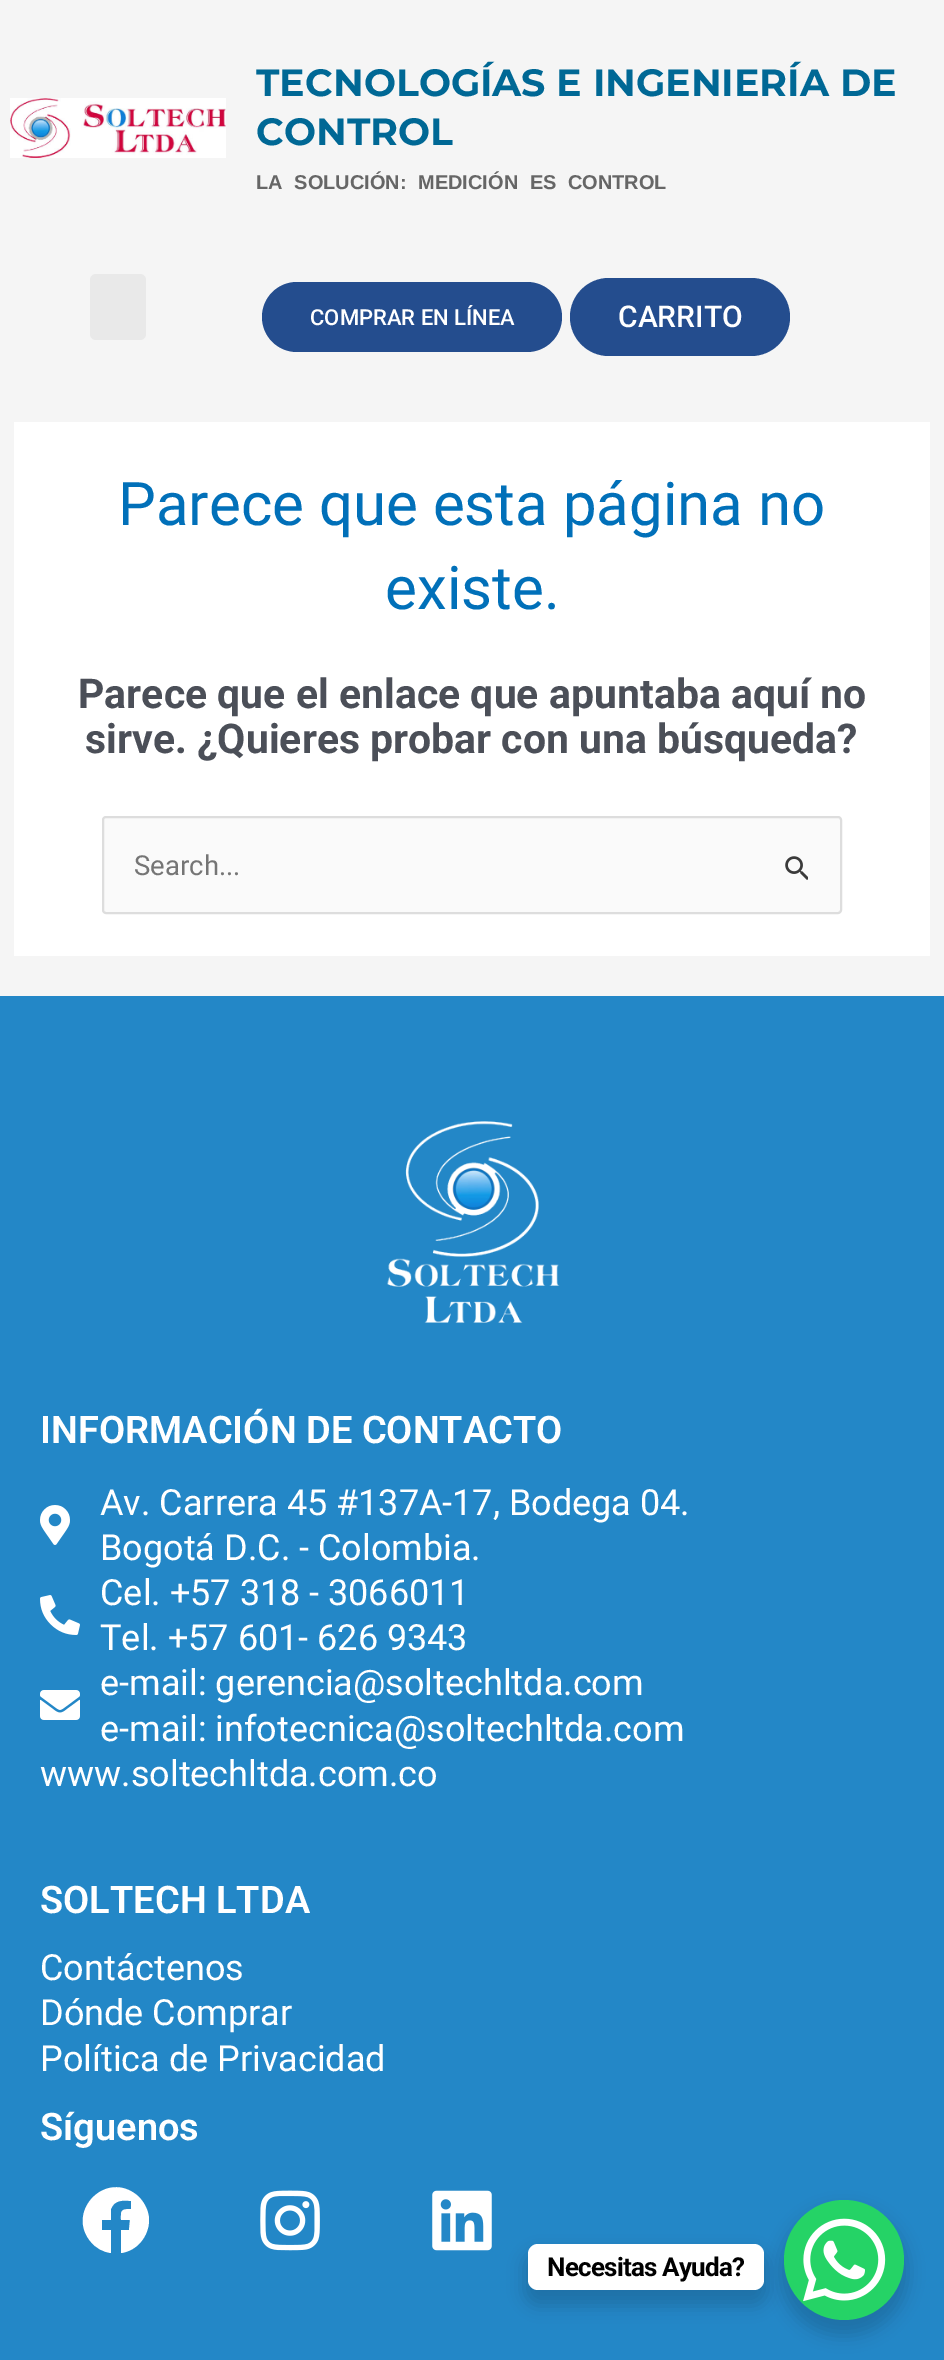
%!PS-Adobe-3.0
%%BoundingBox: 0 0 944 2360
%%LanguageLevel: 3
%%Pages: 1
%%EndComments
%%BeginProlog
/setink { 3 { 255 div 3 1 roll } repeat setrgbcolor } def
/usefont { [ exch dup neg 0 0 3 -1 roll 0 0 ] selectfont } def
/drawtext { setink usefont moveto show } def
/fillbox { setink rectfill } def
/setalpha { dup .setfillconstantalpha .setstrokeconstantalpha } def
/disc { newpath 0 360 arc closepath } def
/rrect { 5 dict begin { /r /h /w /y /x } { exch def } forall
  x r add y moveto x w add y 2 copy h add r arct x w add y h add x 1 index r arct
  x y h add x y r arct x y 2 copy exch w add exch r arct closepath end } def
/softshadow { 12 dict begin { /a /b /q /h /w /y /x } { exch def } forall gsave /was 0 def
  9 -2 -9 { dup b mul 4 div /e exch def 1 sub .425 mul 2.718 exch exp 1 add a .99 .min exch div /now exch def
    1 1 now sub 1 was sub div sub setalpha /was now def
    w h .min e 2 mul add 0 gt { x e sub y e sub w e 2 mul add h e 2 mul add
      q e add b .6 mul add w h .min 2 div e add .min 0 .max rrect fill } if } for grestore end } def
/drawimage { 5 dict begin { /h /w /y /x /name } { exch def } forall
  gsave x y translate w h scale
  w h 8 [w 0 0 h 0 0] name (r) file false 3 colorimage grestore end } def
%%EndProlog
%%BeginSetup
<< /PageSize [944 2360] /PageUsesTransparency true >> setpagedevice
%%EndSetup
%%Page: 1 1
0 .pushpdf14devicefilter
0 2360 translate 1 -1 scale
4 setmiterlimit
0 0 944 2360 245 245 245 fillbox
(assets/img1.rgb) 10 98 216 60 drawimage
(TECNOLOGÍAS E INGENIERÍA DE) 256 96 /Montserrat-Bold 38 0 104 149 drawtext
(CONTROL) 256 145 /Montserrat-Bold 38 0 104 149 drawtext
/LiberationSans-Bold 20 usefont
102 102 102 setink
256 189 moveto 6 0 32 (LA SOLUCIÓN: MEDICIÓN ES CONTROL) widthshow
233 233 233 setink
90 274 56 66 6 rrect fill
36 77 142 setink
262 282 300 70 35 rrect fill
(COMPRAR EN LÍNEA) 310 325 /Roboto-Medium 22 255 255 255 drawtext
36 77 142 setink
570 278 220 78 39 rrect fill
(CARRITO) 618 327 /Roboto-Medium 30 255 255 255 drawtext
14 422 916 534 255 255 255 fillbox
(Parece que esta página no) 118 525 /Roboto-Regular 60 1 112 185 drawtext
(existe.) 385 609 /Roboto-Regular 60 1 112 185 drawtext
(Parece que el enlace que apuntaba aquí no) 78 708 /Roboto-Bold 41 75 79 88 drawtext
(sirve. ¿Quieres probar con una búsqueda?) 85 753 /Roboto-Bold 41 75 79 88 drawtext
250 250 250 setink
103 817 738 96 3 rrect gsave fill grestore
221 221 221 setink
2 setlinewidth
stroke
(Search...) 134 875 /Roboto-Regular 27.5 117 117 117 drawtext
(assets/img2.rgb) 785 856 23 24 drawimage
0 996 944 1364 35 135 199 fillbox
(assets/img3.rgb) 387 1121 173 202 drawimage
(INFORMACIÓN DE CONTACTO) 40 1443 /Roboto-SemiBold 38 255 255 255 drawtext
(assets/img4.rgb) 40 1505 30 40 drawimage
(Av. Carrera 45 #137A-17, Bodega 04.) 100 1515 /Roboto-Regular 36 255 255 255 drawtext
(Bogotá D.C. - Colombia.) 100 1560 /Roboto-Regular 36 255 255 255 drawtext
(assets/img5.rgb) 40 1595 40 40 drawimage
(Cel. +57 318 - 3066011) 100 1605 /Roboto-Regular 36 255 255 255 drawtext
(Tel. +57 601- 626 9343) 100 1650 /Roboto-Regular 36 255 255 255 drawtext
(assets/img6.rgb) 40 1690 40 30 drawimage
(e-mail: gerencia@soltechltda.com) 100 1695 /Roboto-Regular 36 255 255 255 drawtext
(e-mail: infotecnica@soltechltda.com) 100 1741 /Roboto-Regular 36 255 255 255 drawtext
(www.soltechltda.com.co) 40 1786 /Roboto-Regular 36 255 255 255 drawtext
(SOLTECH LTDA) 40 1913 /Roboto-SemiBold 38 255 255 255 drawtext
(Contáctenos) 40 1980 /Roboto-Regular 36 255 255 255 drawtext
(Dónde Comprar) 40 2025 /Roboto-Regular 36 255 255 255 drawtext
(Política de Privacidad) 40 2071 /Roboto-Regular 36 255 255 255 drawtext
(Síguenos) 40 2140 /Roboto-SemiBold 38 255 255 255 drawtext
149 2220 moveto 149 2236 137 2251 121 2253 curveto 121 2230 lineto 129 2230 lineto 130 2220 lineto 121 2220 lineto 121 2211 120 2209 131 2209 curveto 131 2201 lineto 123 2200 114 2200 111 2209 curveto 111 2220 lineto 102 2220 lineto 102 2230 lineto 111 2230 lineto 111 2253 lineto 103 2252 96 2248 91 2242 curveto 66 2213 103 2172 134 2193 curveto 143 2199 149 2210 149 2220 curveto closepath fill
(assets/img7.rgb) 260 2190 60 61 drawimage
(assets/img8.rgb) 432 2190 60 61 drawimage
0 0 0 setink
780 2208 128 128 64 8 0.15 softshadow
37 211 102 setink
844 2260 60 disc fill
0 0 0 setink
524 2252 244 54 14 8 0.15 softshadow
255 255 255 setink
528 2244 236 46 10 rrect fill
/Roboto-Bold 26 usefont
0 0 0 setink
547 2276 moveto -0.75 0 (Necesitas Ayuda?) ashow
(assets/img9.rgb) 803 2218 83 84 drawimage
.poppdf14devicefilter showpage
%%EOF
